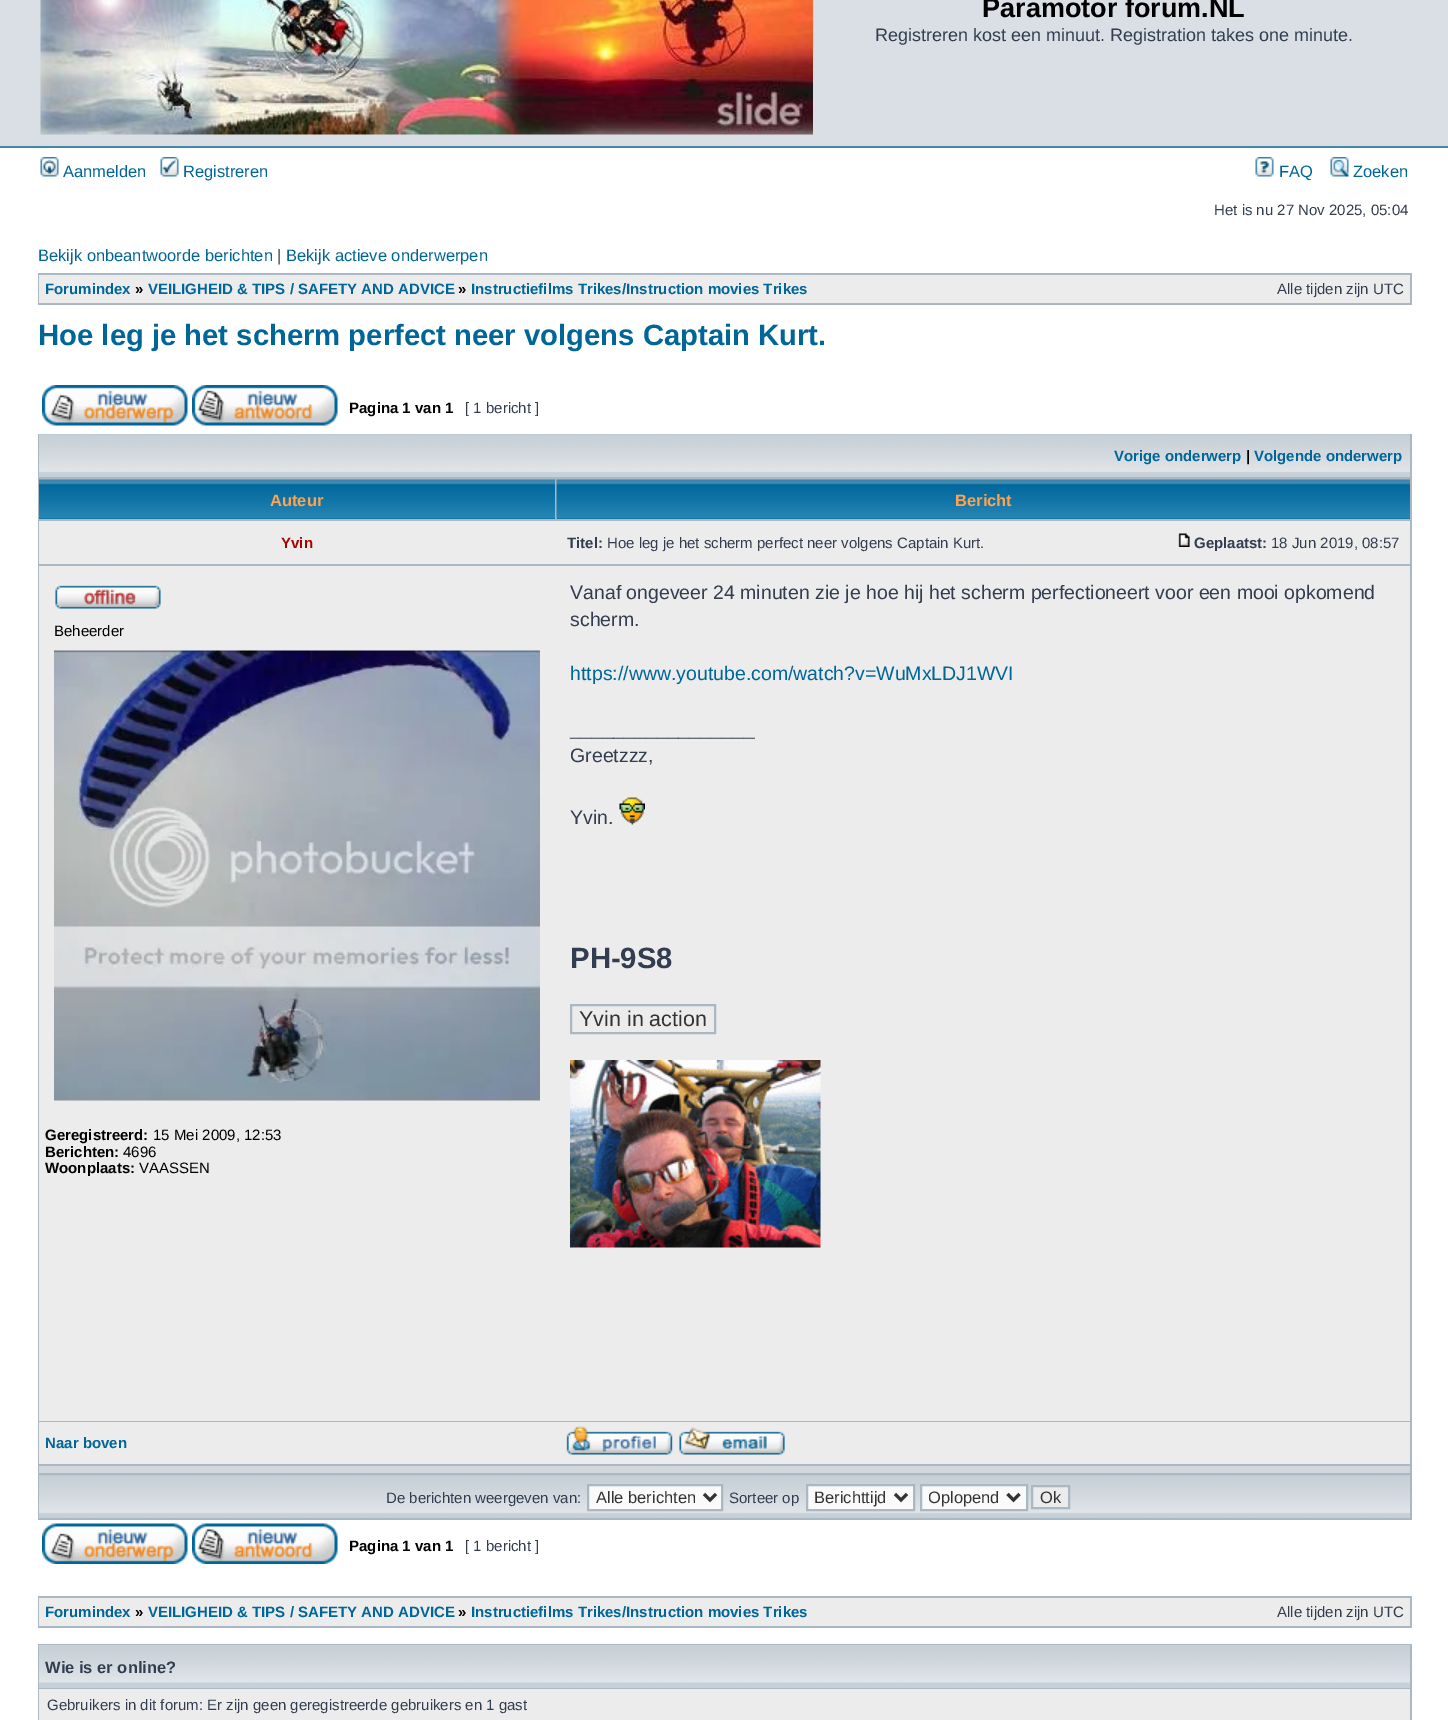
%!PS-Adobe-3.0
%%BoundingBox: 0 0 1448 1720
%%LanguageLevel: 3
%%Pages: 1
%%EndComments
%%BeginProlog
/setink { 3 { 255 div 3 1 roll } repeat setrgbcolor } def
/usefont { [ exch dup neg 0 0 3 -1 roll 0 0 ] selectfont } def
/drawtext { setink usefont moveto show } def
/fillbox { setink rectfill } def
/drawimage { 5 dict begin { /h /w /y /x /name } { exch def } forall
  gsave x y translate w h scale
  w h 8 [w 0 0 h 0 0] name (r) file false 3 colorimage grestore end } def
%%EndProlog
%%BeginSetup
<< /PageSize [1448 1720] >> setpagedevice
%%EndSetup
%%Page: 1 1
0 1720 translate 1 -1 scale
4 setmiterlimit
0 0 1448 1720 255 255 255 fillbox
0 0 1448 146 217 223 228 fillbox
0 146 1448 2 71 135 167 fillbox
(assets/img1.rgb) 40 0 773 135 drawimage
(Paramotor forum.NL) 982 17 /LiberationSans-Bold 27 0 0 0 drawtext
(Registreren kost een minuut. Registration takes one minute.) 875 41 /LiberationSans-Regular 18 50 61 79 drawtext
(assets/img2.rgb) 40 157 19 20 drawimage
(Aanmelden) 63 177 /LiberationSans-Regular 16.5 0 101 151 drawtext
(assets/img3.rgb) 160 157 19 20 drawimage
(Registreren) 183 177 /LiberationSans-Regular 16.5 0 101 151 drawtext
(assets/img4.rgb) 1255 157 19 20 drawimage
(FAQ) 1279 177 /LiberationSans-Regular 16.5 0 101 151 drawtext
(assets/img5.rgb) 1330 157 19 20 drawimage
(Zoeken) 1353 177 /LiberationSans-Regular 16.5 0 101 151 drawtext
(Het is nu 27 Nov 2025, 05:04) 1214 215 /LiberationSans-Regular 15 50 61 79 drawtext
(Bekijk onbeantwoorde berichten) 38 261 /LiberationSans-Regular 16.5 0 101 151 drawtext
(|) 277 261 /LiberationSans-Regular 16.5 50 61 79 drawtext
(Bekijk actieve onderwerpen) 286 261 /LiberationSans-Regular 16.5 0 101 151 drawtext
38 273 1374 32 169 184 194 fillbox
39 275 1371 28 236 236 236 fillbox
(Forumindex) 45 294 /LiberationSans-Bold 15 0 101 151 drawtext
(») 135 294 /LiberationSans-Bold 15 0 0 0 drawtext
(VEILIGHEID & TIPS / SAFETY AND ADVICE) 148 294 /LiberationSans-Bold 15 0 101 151 drawtext
(») 458 294 /LiberationSans-Bold 15 0 0 0 drawtext
(Instructiefilms Trikes/Instruction movies Trikes) 471 294 /LiberationSans-Bold 15 0 101 151 drawtext
(Alle tijden zijn UTC) 1277 294 /LiberationSans-Regular 15 50 61 79 drawtext
(Hoe leg je het scherm perfect neer volgens Captain Kurt.) 38 345 /LiberationSans-Bold 29.25 0 101 151 drawtext
(assets/img6.rgb) 42 385 146 41 drawimage
(assets/img7.rgb) 192 385 146 41 drawimage
(Pagina 1 van 1) 349 413 /LiberationSans-Bold 15 0 0 0 drawtext
([ 1 bericht ]) 465 413 /LiberationSans-Regular 15 50 61 79 drawtext
38 434 1374 1086 169 184 194 fillbox
39 473 1371 4 199 208 215 fillbox
(assets/img8.rgb) 39 434 1371 39 drawimage
(Vorige onderwerp) 1114 461 /LiberationSans-Bold 15 0 101 151 drawtext
(|) 1246 461 /LiberationSans-Bold 15 0 0 0 drawtext
(Volgende onderwerp) 1254 461 /LiberationSans-Bold 15 0 101 151 drawtext
39 518 516 1 0 102 153 fillbox
(assets/img9.rgb) 39 479 516 40 drawimage
(Auteur) 270 506 /LiberationSans-Bold 16.5 255 163 79 drawtext
557 518 853 1 0 102 153 fillbox
(assets/img10.rgb) 556 479 854 40 drawimage
(Bericht) 955 506 /LiberationSans-Bold 16.5 255 163 79 drawtext
39 521 1371 43 236 236 236 fillbox
(Yvin) 281 548 /LiberationSans-Bold 15 170 0 0 drawtext
(Titel:) 567 548 /LiberationSans-Bold 15 50 61 79 drawtext
(Hoe leg je het scherm perfect neer volgens Captain Kurt.) 607 548 /LiberationSans-Regular 15 50 61 79 drawtext
(assets/img11.rgb) 1178 533 12 14 drawimage
(Geplaatst:) 1194 548 /LiberationSans-Bold 15 50 61 79 drawtext
(18 Jun 2019, 08:57) 1271 548 /LiberationSans-Regular 15 50 61 79 drawtext
39 566 1371 855 236 236 236 fillbox
(assets/img12.rgb) 55 585 106 24 drawimage
(Beheerder) 54 636 /LiberationSans-Regular 15 0 0 0 drawtext
(assets/img13.rgb) 54 650 486 451 drawimage
(Geregistreerd:) 45 1140 /LiberationSans-Bold 15 0 0 0 drawtext
(15 Mei 2009, 12:53) 153 1140 /LiberationSans-Regular 15 0 0 0 drawtext
(Berichten:) 45 1157 /LiberationSans-Bold 15 0 0 0 drawtext
(4696) 123 1157 /LiberationSans-Regular 15 0 0 0 drawtext
(Woonplaats:) 45 1173 /LiberationSans-Bold 15 0 0 0 drawtext
(VAASSEN) 139 1173 /LiberationSans-Regular 15 0 0 0 drawtext
(Vanaf ongeveer 24 minuten zie je hoe hij het scherm perfectioneert voor een mooi opkomend) 570 599 /LiberationSans-Regular 19.5 50 61 79 drawtext
(scherm.) 570 626 /LiberationSans-Regular 19.5 50 61 79 drawtext
(https://www.youtube.com/watch?v=WuMxLDJ1WVI) 570 680 /LiberationSans-Regular 19.5 0 101 151 drawtext
(_________________) 570 735 /LiberationSans-Regular 19.5 50 61 79 drawtext
(Greetzzz,) 570 762 /LiberationSans-Regular 19.5 50 61 79 drawtext
(Yvin.) 570 824 /LiberationSans-Regular 19.5 50 61 79 drawtext
(assets/img14.rgb) 619 797 26 28 drawimage
(PH-9S8) 570 968 /LiberationSans-Bold 29.25 50 61 79 drawtext
169 184 194 setink
2 setlinewidth
571 1005 144 28 rectstroke
(Yvin in action) 579 1026 /LiberationSans-Regular 21.5 51 51 51 drawtext
(assets/img15.rgb) 570 1060 251 188 drawimage
39 1422 1371 42 236 236 236 fillbox
(Naar boven) 45 1448 /LiberationSans-Bold 15 0 101 151 drawtext
(assets/img16.rgb) 566 1426 107 29 drawimage
(assets/img17.rgb) 679 1427 106 28 drawimage
39 1466 1371 7 209 215 220 fillbox
39 1514 1371 4 199 208 215 fillbox
(assets/img8.rgb) 39 1475 1371 39 drawimage
(De berichten weergeven van:) 386 1503 /LiberationSans-Regular 15 50 61 79 drawtext
250 250 250 setink
588 1485 moveto 722 1485 lineto 722 1510 lineto 588 1510 lineto closepath gsave fill grestore
169 184 194 setink
stroke
51 51 51 setink
3 setlinewidth
704 1494 moveto 710 1500 lineto 716 1494 lineto stroke
(Alle berichten) 596 1503 /LiberationSans-Regular 16.5 51 51 51 drawtext
(Sorteer op) 729 1503 /LiberationSans-Regular 15 50 61 79 drawtext
250 250 250 setink
807 1485 moveto 914 1485 lineto 914 1510 lineto 807 1510 lineto closepath gsave fill grestore
169 184 194 setink
2 setlinewidth
stroke
51 51 51 setink
3 setlinewidth
895 1494 moveto 901 1500 lineto 907 1494 lineto stroke
(Berichttijd) 814 1503 /LiberationSans-Regular 16.5 51 51 51 drawtext
250 250 250 setink
921 1485 moveto 1027 1485 lineto 1027 1510 lineto 921 1510 lineto closepath gsave fill grestore
169 184 194 setink
2 setlinewidth
stroke
51 51 51 setink
3 setlinewidth
1007.5 1494 moveto 1013.5 1500 lineto 1019.5 1494 lineto stroke
gsave
929 1487 72 21 rectclip
(Oplopend) 928 1503 /LiberationSans-Regular 16.5 51 51 51 drawtext
grestore
236 236 236 setink
1032 1486 moveto 1069 1486 lineto 1069 1508 lineto 1032 1508 lineto closepath gsave fill grestore
169 184 194 setink
2 setlinewidth
stroke
(Ok) 1040 1503 /LiberationSans-Regular 16.5 51 51 51 drawtext
(assets/img18.rgb) 42 1523 146 41 drawimage
(assets/img19.rgb) 192 1523 146 41 drawimage
(Pagina 1 van 1) 349 1551 /LiberationSans-Bold 15 0 0 0 drawtext
([ 1 bericht ]) 465 1551 /LiberationSans-Regular 15 50 61 79 drawtext
38 1596 1374 32 169 184 194 fillbox
39 1598 1371 28 236 236 236 fillbox
(Forumindex) 45 1617 /LiberationSans-Bold 15 0 101 151 drawtext
(») 135 1617 /LiberationSans-Bold 15 0 0 0 drawtext
(VEILIGHEID & TIPS / SAFETY AND ADVICE) 148 1617 /LiberationSans-Bold 15 0 101 151 drawtext
(») 458 1617 /LiberationSans-Bold 15 0 0 0 drawtext
(Instructiefilms Trikes/Instruction movies Trikes) 471 1617 /LiberationSans-Bold 15 0 101 151 drawtext
(Alle tijden zijn UTC) 1277 1617 /LiberationSans-Regular 15 50 61 79 drawtext
38 1644 1374 76 169 184 194 fillbox
39 1683 1371 5 199 208 215 fillbox
(assets/img20.rgb) 39 1645 1371 38 drawimage
(Wie is er online?) 45 1673 /LiberationSans-Bold 16.5 50 61 79 drawtext
39 1689 1371 31 236 236 236 fillbox
(Gebruikers in dit forum: Er zijn geen geregistreerde gebruikers en 1 gast) 47 1710 /LiberationSans-Regular 15 50 61 79 drawtext
showpage
%%EOF
